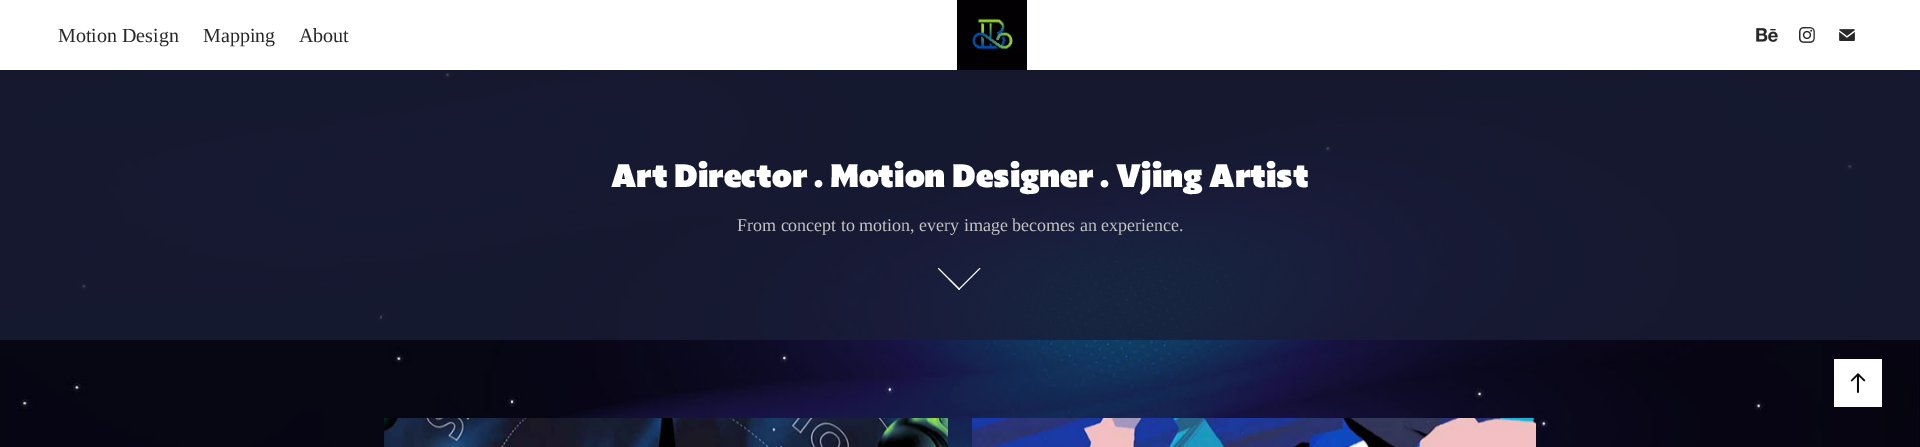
%!PS-Adobe-3.0
%%BoundingBox: 0 0 1920 447
%%LanguageLevel: 3
%%Pages: 1
%%EndComments
%%BeginProlog
/setink { 3 { 255 div 3 1 roll } repeat setrgbcolor } def
/usefont { [ exch dup neg 0 0 3 -1 roll 0 0 ] selectfont } def
/drawtext { setink usefont moveto show } def
/fillbox { setink rectfill } def
/setalpha { dup .setfillconstantalpha .setstrokeconstantalpha } def
/rrect { 5 dict begin { /r /h /w /y /x } { exch def } forall
  x r add y moveto x w add y 2 copy h add r arct x w add y h add x 1 index r arct
  x y h add x y r arct x y 2 copy exch w add exch r arct closepath end } def
/softshadow { 12 dict begin { /a /b /q /h /w /y /x } { exch def } forall gsave /was 0 def
  9 -2 -9 { dup b mul 4 div /e exch def 1 sub .425 mul 2.718 exch exp 1 add a .99 .min exch div /now exch def
    1 1 now sub 1 was sub div sub setalpha /was now def
    w h .min e 2 mul add 0 gt { x e sub y e sub w e 2 mul add h e 2 mul add
      q e add b .6 mul add w h .min 2 div e add .min 0 .max rrect fill } if } for grestore end } def
/drawimage { 5 dict begin { /h /w /y /x /name } { exch def } forall
  gsave x y translate w h scale
  w h 8 [w 0 0 h 0 0] name (r) file false 3 colorimage grestore end } def
%%EndProlog
%%BeginSetup
<< /PageSize [1920 447] /PageUsesTransparency true >> setpagedevice
%%EndSetup
%%Page: 1 1
0 .pushpdf14devicefilter
0 447 translate 1 -1 scale
4 setmiterlimit
0 0 1920 447 255 255 255 fillbox
(assets/img1.rgb) 0 70 1920 377 drawimage
0.8 setalpha
0 70 1920 270 25 29 54 fillbox
1 setalpha
0 0 0 setink
0 1 1920 70 0 1.5 0.1 softshadow
0 0 1920 70 255 255 255 fillbox
(Motion Design) 58 42 /LiberationSerif-Regular 20 40 40 40 drawtext
(Mapping) 203 42 /LiberationSerif-Regular 20 40 40 40 drawtext
(About) 299 42 /LiberationSerif-Regular 20 40 40 40 drawtext
(assets/img2.rgb) 957 0 70 70 drawimage
(assets/img3.rgb) 1756 28 22 14 drawimage
(assets/img4.rgb) 1799 27 16 16 drawimage
(assets/img5.rgb) 1839 29 16 12 drawimage
(Art Director . Motion Designer . Vjing Artist) 611 187 /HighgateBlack-Black 32 255 255 255 drawtext
(From concept to motion, every image becomes an experience.) 737 231 /LiberationSerif-Regular 18 196 196 196 drawtext
255 255 255 setink
979.5 268 moveto 980.5 268.5 lineto 959 290 lineto 958.5 289 lineto closepath fill
938.5 268 moveto 960 289 lineto 959 290 lineto 938 268.5 lineto closepath fill
1834 359 48 48 255 255 255 fillbox
(assets/img6.rgb) 1850 373 16 20 drawimage
(assets/img7.rgb) 384 418 564 29 drawimage
(assets/img8.rgb) 972 418 564 29 drawimage
.poppdf14devicefilter showpage
%%EOF
